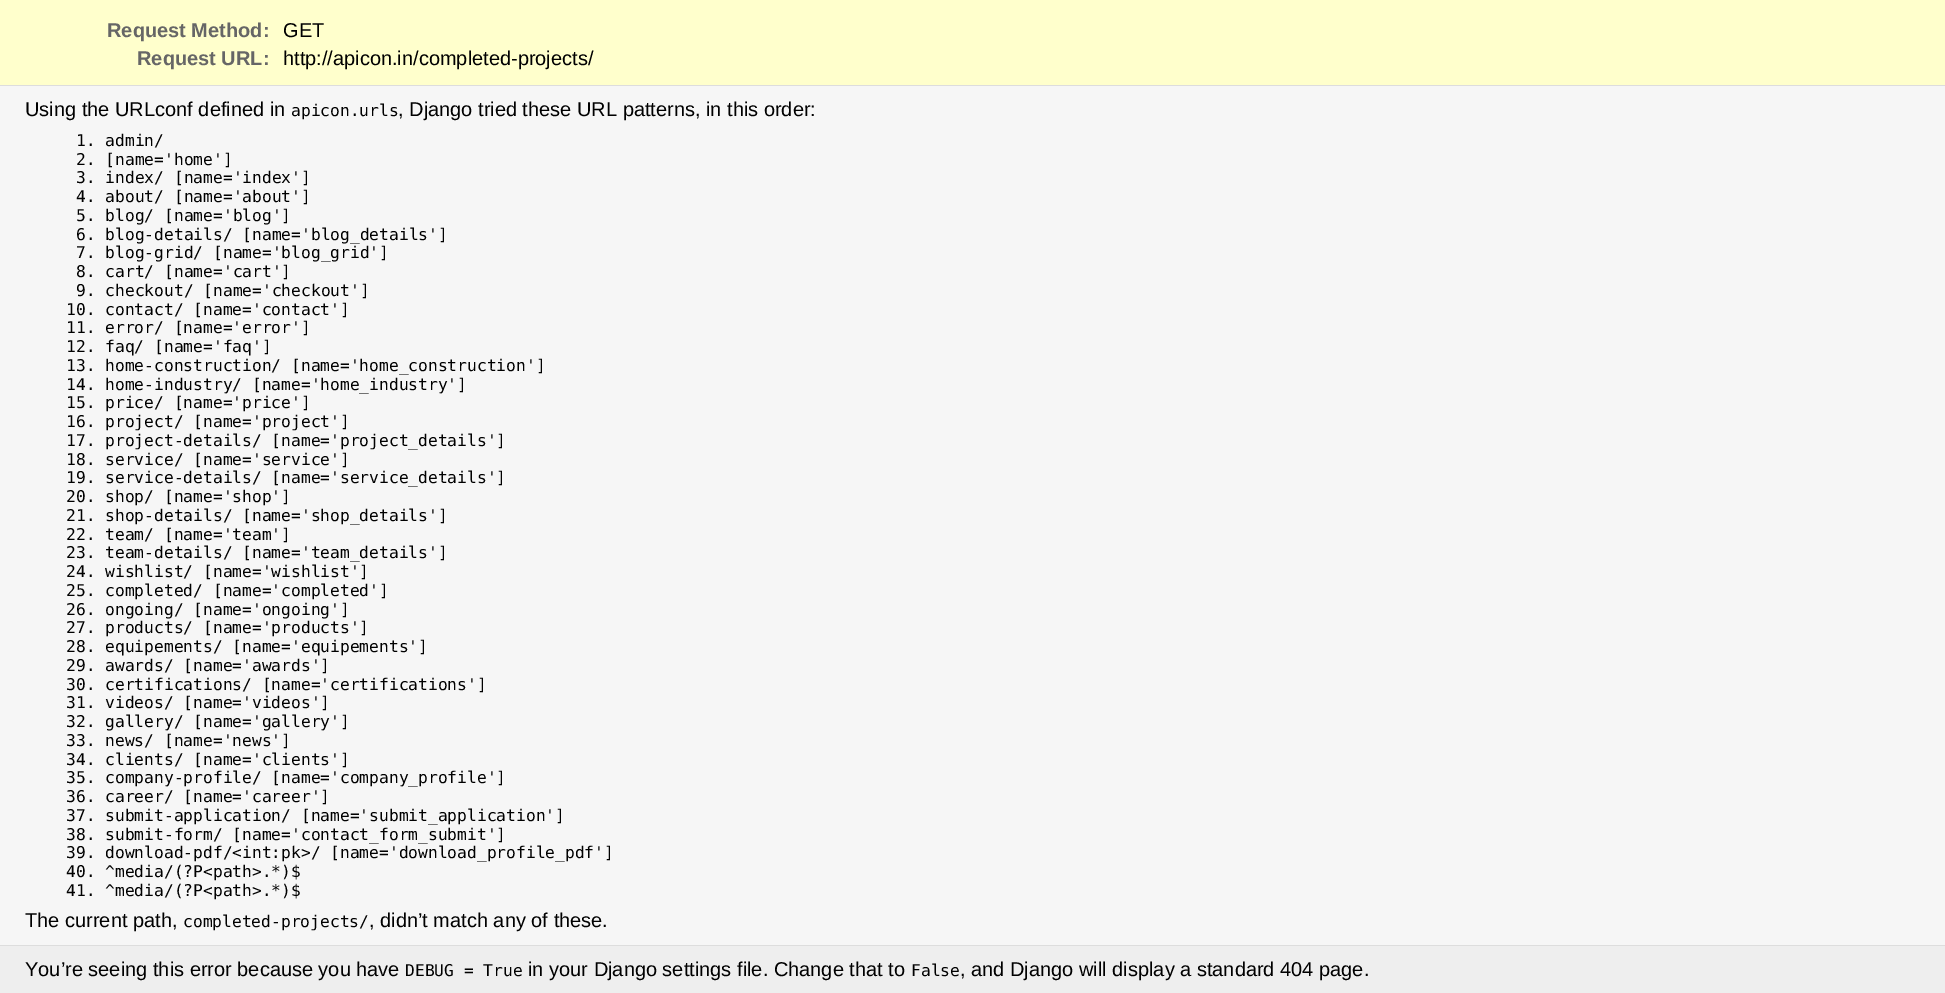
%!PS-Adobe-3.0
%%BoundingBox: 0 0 1945 993
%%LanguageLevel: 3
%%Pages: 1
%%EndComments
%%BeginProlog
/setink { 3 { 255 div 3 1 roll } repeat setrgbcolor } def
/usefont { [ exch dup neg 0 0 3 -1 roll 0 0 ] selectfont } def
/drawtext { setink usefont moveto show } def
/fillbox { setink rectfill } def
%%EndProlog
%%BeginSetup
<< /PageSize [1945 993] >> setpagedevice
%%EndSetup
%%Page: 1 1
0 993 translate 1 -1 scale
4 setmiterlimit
0 0 1945 993 238 238 238 fillbox
0 0 1945 85 255 255 204 fillbox
0 85 1945 1 221 221 221 fillbox
(Request Method:) 107 37 /LiberationSans-Bold 20 102 102 102 drawtext
(GET) 283 37 /LiberationSans-Regular 20 0 0 0 drawtext
(Request URL:) 137 65 /LiberationSans-Bold 20 102 102 102 drawtext
(http://apicon.in/completed-projects/) 283 65 /LiberationSans-Regular 20 0 0 0 drawtext
0 86 1945 859 246 246 246 fillbox
0 945 1945 1 221 221 221 fillbox
(Using the URLconf defined in) 25 116 /LiberationSans-Regular 20 0 0 0 drawtext
(apicon.urls) 291 116 /DejaVuSansMono-Regular 16.25 0 0 0 drawtext
(, Django tried these URL patterns, in this order:) 398 116 /LiberationSans-Regular 20 0 0 0 drawtext
(1. admin/) 76 146 /DejaVuSansMono-Regular 16.25 0 0 0 drawtext
(2. [name='home']) 76 165 /DejaVuSansMono-Regular 16.25 0 0 0 drawtext
(3. index/ [name='index']) 76 183 /DejaVuSansMono-Regular 16.25 0 0 0 drawtext
(4. about/ [name='about']) 76 202 /DejaVuSansMono-Regular 16.25 0 0 0 drawtext
(5. blog/ [name='blog']) 76 221 /DejaVuSansMono-Regular 16.25 0 0 0 drawtext
(6. blog-details/ [name='blog_details']) 76 240 /DejaVuSansMono-Regular 16.25 0 0 0 drawtext
(7. blog-grid/ [name='blog_grid']) 76 258 /DejaVuSansMono-Regular 16.25 0 0 0 drawtext
(8. cart/ [name='cart']) 76 277 /DejaVuSansMono-Regular 16.25 0 0 0 drawtext
(9. checkout/ [name='checkout']) 76 296 /DejaVuSansMono-Regular 16.25 0 0 0 drawtext
(10. contact/ [name='contact']) 66 315 /DejaVuSansMono-Regular 16.25 0 0 0 drawtext
(11. error/ [name='error']) 66 333 /DejaVuSansMono-Regular 16.25 0 0 0 drawtext
(12. faq/ [name='faq']) 66 352 /DejaVuSansMono-Regular 16.25 0 0 0 drawtext
(13. home-construction/ [name='home_construction']) 66 371 /DejaVuSansMono-Regular 16.25 0 0 0 drawtext
(14. home-industry/ [name='home_industry']) 66 390 /DejaVuSansMono-Regular 16.25 0 0 0 drawtext
(15. price/ [name='price']) 66 408 /DejaVuSansMono-Regular 16.25 0 0 0 drawtext
(16. project/ [name='project']) 66 427 /DejaVuSansMono-Regular 16.25 0 0 0 drawtext
(17. project-details/ [name='project_details']) 66 446 /DejaVuSansMono-Regular 16.25 0 0 0 drawtext
(18. service/ [name='service']) 66 465 /DejaVuSansMono-Regular 16.25 0 0 0 drawtext
(19. service-details/ [name='service_details']) 66 483 /DejaVuSansMono-Regular 16.25 0 0 0 drawtext
(20. shop/ [name='shop']) 66 502 /DejaVuSansMono-Regular 16.25 0 0 0 drawtext
(21. shop-details/ [name='shop_details']) 66 521 /DejaVuSansMono-Regular 16.25 0 0 0 drawtext
(22. team/ [name='team']) 66 540 /DejaVuSansMono-Regular 16.25 0 0 0 drawtext
(23. team-details/ [name='team_details']) 66 558 /DejaVuSansMono-Regular 16.25 0 0 0 drawtext
(24. wishlist/ [name='wishlist']) 66 577 /DejaVuSansMono-Regular 16.25 0 0 0 drawtext
(25. completed/ [name='completed']) 66 596 /DejaVuSansMono-Regular 16.25 0 0 0 drawtext
(26. ongoing/ [name='ongoing']) 66 615 /DejaVuSansMono-Regular 16.25 0 0 0 drawtext
(27. products/ [name='products']) 66 633 /DejaVuSansMono-Regular 16.25 0 0 0 drawtext
(28. equipements/ [name='equipements']) 66 652 /DejaVuSansMono-Regular 16.25 0 0 0 drawtext
(29. awards/ [name='awards']) 66 671 /DejaVuSansMono-Regular 16.25 0 0 0 drawtext
(30. certifications/ [name='certifications']) 66 690 /DejaVuSansMono-Regular 16.25 0 0 0 drawtext
(31. videos/ [name='videos']) 66 708 /DejaVuSansMono-Regular 16.25 0 0 0 drawtext
(32. gallery/ [name='gallery']) 66 727 /DejaVuSansMono-Regular 16.25 0 0 0 drawtext
(33. news/ [name='news']) 66 746 /DejaVuSansMono-Regular 16.25 0 0 0 drawtext
(34. clients/ [name='clients']) 66 765 /DejaVuSansMono-Regular 16.25 0 0 0 drawtext
(35. company-profile/ [name='company_profile']) 66 783 /DejaVuSansMono-Regular 16.25 0 0 0 drawtext
(36. career/ [name='career']) 66 802 /DejaVuSansMono-Regular 16.25 0 0 0 drawtext
(37. submit-application/ [name='submit_application']) 66 821 /DejaVuSansMono-Regular 16.25 0 0 0 drawtext
(38. submit-form/ [name='contact_form_submit']) 66 840 /DejaVuSansMono-Regular 16.25 0 0 0 drawtext
(39. download-pdf/<int:pk>/ [name='download_profile_pdf']) 66 858 /DejaVuSansMono-Regular 16.25 0 0 0 drawtext
(40. ^media/\(?P<path>.*\)$) 66 877 /DejaVuSansMono-Regular 16.25 0 0 0 drawtext
(41. ^media/\(?P<path>.*\)$) 66 896 /DejaVuSansMono-Regular 16.25 0 0 0 drawtext
(The current path,) 25 927 /LiberationSans-Regular 20 0 0 0 drawtext
(completed-projects/) 183 927 /DejaVuSansMono-Regular 16.25 0 0 0 drawtext
(, didn’t match any of these.) 369 927 /LiberationSans-Regular 20 0 0 0 drawtext
(You’re seeing this error because you have) 25 976 /LiberationSans-Regular 20 0 0 0 drawtext
(DEBUG = True) 405 976 /DejaVuSansMono-Regular 16.25 0 0 0 drawtext
(in your Django settings file. Change that to) 528 976 /LiberationSans-Regular 20 0 0 0 drawtext
(False) 911 976 /DejaVuSansMono-Regular 16.25 0 0 0 drawtext
(, and Django will display a standard 404 page.) 960 976 /LiberationSans-Regular 20 0 0 0 drawtext
showpage
%%EOF
